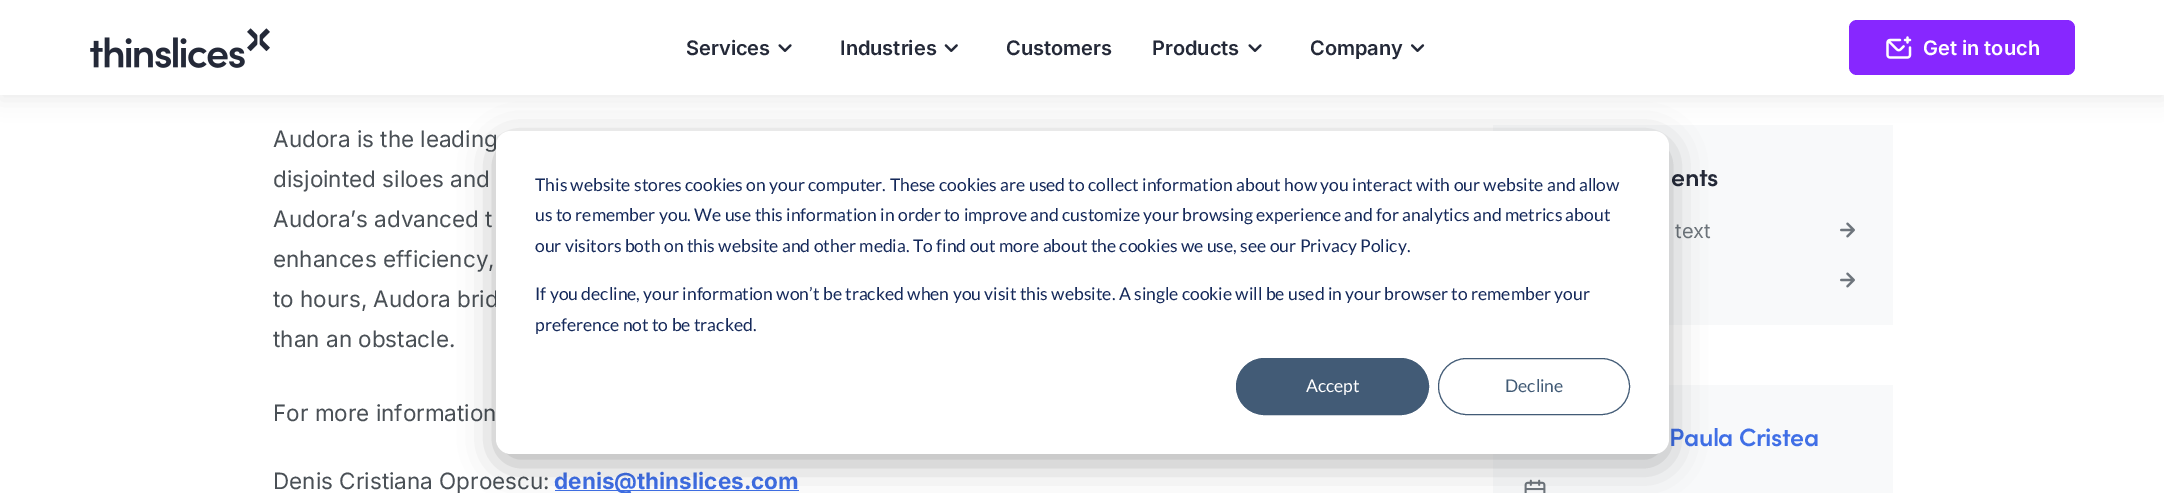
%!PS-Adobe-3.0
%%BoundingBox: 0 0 2164 493
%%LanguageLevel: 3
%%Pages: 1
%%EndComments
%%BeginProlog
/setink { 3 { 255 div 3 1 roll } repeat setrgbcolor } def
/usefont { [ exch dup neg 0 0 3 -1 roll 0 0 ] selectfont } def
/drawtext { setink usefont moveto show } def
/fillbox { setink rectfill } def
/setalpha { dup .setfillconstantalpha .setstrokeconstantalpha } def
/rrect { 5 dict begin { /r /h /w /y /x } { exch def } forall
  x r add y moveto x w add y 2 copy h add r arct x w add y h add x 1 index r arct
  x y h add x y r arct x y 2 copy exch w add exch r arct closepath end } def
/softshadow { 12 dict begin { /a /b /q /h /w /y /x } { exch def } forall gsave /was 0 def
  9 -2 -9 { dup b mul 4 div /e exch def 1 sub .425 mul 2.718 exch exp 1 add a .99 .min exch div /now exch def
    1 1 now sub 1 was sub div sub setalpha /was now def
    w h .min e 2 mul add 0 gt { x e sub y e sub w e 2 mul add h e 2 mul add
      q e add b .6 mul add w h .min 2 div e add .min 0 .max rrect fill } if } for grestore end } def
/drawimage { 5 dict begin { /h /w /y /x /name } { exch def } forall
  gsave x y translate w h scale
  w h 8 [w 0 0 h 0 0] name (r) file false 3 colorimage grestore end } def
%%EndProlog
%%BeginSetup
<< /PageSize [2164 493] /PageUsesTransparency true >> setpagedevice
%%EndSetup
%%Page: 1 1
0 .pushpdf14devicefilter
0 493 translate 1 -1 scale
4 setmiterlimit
0 0 2164 493 255 255 255 fillbox
1493 125 400 200 248 249 250 fillbox
0 0 0 setink
0 5 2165 95 0 10 0.07 softshadow
0 0 2164 95 255 255 255 fillbox
(assets/img1.rgb) 90 28 180 40 drawimage
(Services) 686 55 /Inter-SemiBold 20 36 41 56 drawtext
(assets/img2.rgb) 778 44 14 8 drawimage
(Industries) 840 55 /Inter-SemiBold 20 36 41 56 drawtext
(assets/img3.rgb) 944 44 14 8 drawimage
(Customers) 1006 55 /Inter-SemiBold 20 36 41 56 drawtext
(Products) 1152 55 /Inter-SemiBold 20 36 41 56 drawtext
(assets/img2.rgb) 1248 44 14 8 drawimage
(Company) 1310 55 /Inter-SemiBold 20 36 41 56 drawtext
(assets/img4.rgb) 1411 44 14 8 drawimage
135 39 255 setink
1849 20 226 55 8 rrect fill
(assets/img5.rgb) 1886 36 26 23 drawimage
(Get in touch) 1923 55 /Inter-SemiBold 20 255 255 255 drawtext
(Audora is the leading) 273 147 /Inter-Regular 22.5 74 80 86 drawtext
(disjointed siloes and) 273 187 /Inter-Regular 22.5 74 80 86 drawtext
(Audora’s advanced t) 273 227 /Inter-Regular 22.5 74 80 86 drawtext
(enhances efficiency,) 273 267 /Inter-Regular 22.5 74 80 86 drawtext
(to hours, Audora brid) 273 307 /Inter-Regular 22.5 74 80 86 drawtext
(than an obstacle.) 273 347 /Inter-Regular 22.5 74 80 86 drawtext
(For more information) 273 421 /Inter-Regular 22.5 74 80 86 drawtext
(Denis Cristiana Oproescu:) 273 489 /Inter-Regular 22.5 74 80 86 drawtext
555 490 244 1 64 111 230 fillbox
(denis@thinslices.com) 554 489 /Inter-Bold 22.5 64 111 230 drawtext
/Sofia-SemiBold 25 usefont
36 41 56 setink
1671 186 moveto -0.5 0 (ents) ashow
(text) 1675 238 /Inter-Regular 20 110 117 124 drawtext
(assets/img6.rgb) 1840 222 15 16 drawimage
(assets/img6.rgb) 1840 272 15 16 drawimage
1493 385 400 108 248 249 250 fillbox
/Sofia-SemiBold 25 usefont
64 111 230 setink
1669 446 moveto -0.5 0 (Paula Cristea) ashow
(assets/img7.rgb) 1524 479 22 14 drawimage
0 0 0 setink
496 141 1173 323 15 17.5 0.28 softshadow
255 255 255 setink
496 131 1173 323 15 rrect fill
(This website stores cookies on your computer. These cookies are used to collect information about how you interact with our website and allow) 535 191 /Lato-Regular 17.5 21 41 90 drawtext
(us to remember you. We use this information in order to improve and customize your browsing experience and for analytics and metrics about) 535 221 /Lato-Regular 17.5 21 41 90 drawtext
(our visitors both on this website and other media. To find out more about the cookies we use, see our Privacy Policy.) 535 252 /Lato-Regular 17.5 21 41 90 drawtext
(If you decline, your information won’t be tracked when you visit this website. A single cookie will be used in your browser to remember your) 535 300 /Lato-Regular 17.5 21 41 90 drawtext
(preference not to be tracked.) 535 331 /Lato-Regular 17.5 21 41 90 drawtext
66 91 118 setink
1236.5 358.5 192 56 28 rrect gsave fill grestore
stroke
(Accept) 1306 392 /Lato-Regular 17.5 255 255 255 drawtext
66 91 118 setink
1438.5 358.5 191 56 28 rrect stroke
(Decline) 1505 392 /Lato-Regular 17.5 66 91 118 drawtext
.poppdf14devicefilter showpage
%%EOF
